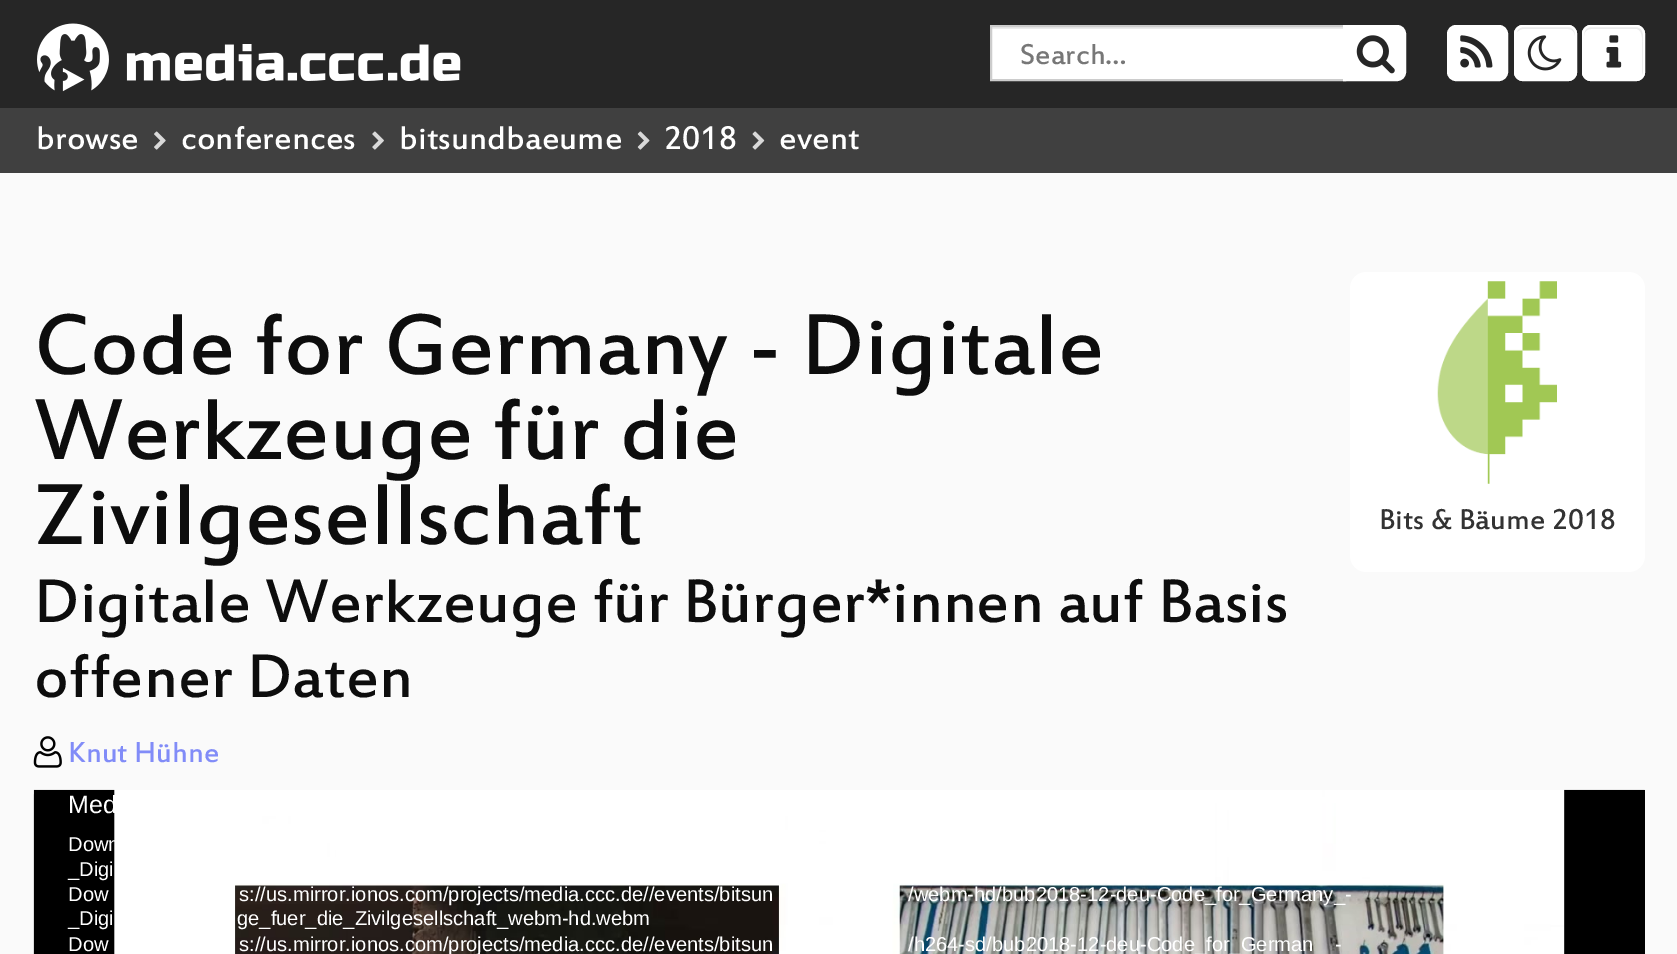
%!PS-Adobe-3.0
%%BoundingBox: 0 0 1677 954
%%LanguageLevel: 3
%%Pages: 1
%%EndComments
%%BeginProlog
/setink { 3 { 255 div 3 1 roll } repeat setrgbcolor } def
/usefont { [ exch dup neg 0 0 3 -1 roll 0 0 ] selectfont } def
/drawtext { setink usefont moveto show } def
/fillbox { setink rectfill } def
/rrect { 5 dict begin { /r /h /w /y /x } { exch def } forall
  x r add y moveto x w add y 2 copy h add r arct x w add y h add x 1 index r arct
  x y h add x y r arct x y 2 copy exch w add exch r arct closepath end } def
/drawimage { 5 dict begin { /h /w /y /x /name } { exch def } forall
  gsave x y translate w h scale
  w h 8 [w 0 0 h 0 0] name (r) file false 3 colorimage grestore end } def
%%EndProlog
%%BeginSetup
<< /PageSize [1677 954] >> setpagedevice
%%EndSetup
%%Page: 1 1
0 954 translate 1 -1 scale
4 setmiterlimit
0 0 1677 954 250 250 250 fillbox
0 0 1677 108 38 38 38 fillbox
(assets/img1.rgb) 37 23 424 69 drawimage
992 29 351 50 255 255 255 fillbox
992 27 351 2 236 236 236 fillbox
204 204 204 setink
2 setlinewidth
991 26 354 54 rectstroke
(Search…) 1020 64 /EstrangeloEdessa-Regular 31.5 119 119 119 drawtext
255 255 255 setink
1344 26 moveto 1397 26 lineto 1401.5 26 1405 29.5 1405 34 curveto 1405 72 lineto 1405 76.5 1401.5 80 1397 80 curveto 1344 80 lineto closepath gsave fill grestore
stroke
(assets/img2.rgb) 1356 35 39 39 drawimage
1448 26 59 54 8 rrect gsave fill grestore
stroke
(assets/img3.rgb) 1460 35 33 33 drawimage
1514 25 63 56 9 rrect fill
236 236 236 setink
1523 29 moveto 1568 29 lineto 1572 29 1575 32 1575 36 curveto 1575 34 lineto 1575 30 1572 27 1568 27 curveto 1524 27 lineto 1521 27 1518 29 1517 32 curveto 1519 30 1521 29 1523 29 curveto closepath fill
255 255 255 setink
1515 26 61 54 8 rrect stroke
(assets/img4.rgb) 1527 35 35 36 drawimage
1582 25 63 56 9 rrect fill
236 236 236 setink
1591 29 moveto 1637 29 lineto 1644 31 1642 44 1642 49 curveto 1642 76 lineto 1644 73 1643 69 1643 66 curveto 1643 53 lineto 1643 22 1646 27 1614 27 curveto 1598 27 lineto 1590 27 1584 26 1584 36 curveto 1584 32 1587 29 1591 29 curveto closepath fill
255 255 255 setink
1583 26 61 54 8 rrect stroke
(assets/img5.rgb) 1606 35 16 33 drawimage
0 108 1677 65 64 64 64 fillbox
(browse) 36 149 /EstrangeloEdessa-Regular 36 255 255 255 drawtext
(assets/img6.rgb) 154 131 12 19 drawimage
(conferences) 181 149 /EstrangeloEdessa-Regular 36 255 255 255 drawtext
(assets/img7.rgb) 372 131 12 19 drawimage
(bitsundbaeume) 399 149 /EstrangeloEdessa-Regular 36 255 255 255 drawtext
(assets/img8.rgb) 637 131 13 19 drawimage
(2018) 664 149 /EstrangeloEdessa-Regular 36 255 255 255 drawtext
(assets/img9.rgb) 752 131 13 19 drawimage
(event) 779 149 /EstrangeloEdessa-Regular 36 255 255 255 drawtext
(Code for Germany - Digitale) 34 374 /EstrangeloEdessa-Regular 94.5 13 13 13 drawtext
(Werkzeuge für die) 34 459 /EstrangeloEdessa-Regular 94.5 13 13 13 drawtext
(Zivilgesellschaft) 34 544 /EstrangeloEdessa-Regular 94.5 13 13 13 drawtext
255 255 255 setink
1350 272 295 300 16 rrect fill
(assets/img10.rgb) 1437 281 120 203 drawimage
(Bits & Bäume 2018) 1379 529 /EstrangeloEdessa-Regular 31.5 51 51 51 drawtext
(Digitale Werkzeuge für Bürger*innen auf Basis) 34 622 /EstrangeloEdessa-Regular 67.5 13 13 13 drawtext
(offener Daten) 34 697 /EstrangeloEdessa-Regular 67.5 13 13 13 drawtext
(assets/img11.rgb) 33 736 29 32 drawimage
(Knut Hühne) 68 762 /EstrangeloEdessa-Regular 31.5 129 140 248 drawtext
1644 790 1 164 0 0 0 fillbox
(assets/img12.rgb) 33 794 1 160 drawimage
(assets/img13.rgb) 33 789 1612 165 drawimage
(Med) 68 813 /LiberationSans-Regular 25 255 255 255 drawtext
(Down) 68 851 /LiberationSans-Regular 20.15 255 255 255 drawtext
(_Digi) 68 876 /LiberationSans-Regular 20.15 255 255 255 drawtext
(Dow) 68 901 /LiberationSans-Regular 20.15 255 255 255 drawtext
(s://us.mirror.ionos.com/projects/media.ccc.de//events/bitsun) 239 901 /LiberationSans-Regular 20.15 255 255 255 drawtext
(/webm-hd/bub2018-12-deu-Code_for_Germany_-) 908 901 /LiberationSans-Regular 20.15 255 255 255 drawtext
(_Digi) 68 925 /LiberationSans-Regular 20.15 255 255 255 drawtext
(ge_fuer_die_Zivilgesellschaft_webm-hd.webm) 237 925 /LiberationSans-Regular 20.15 255 255 255 drawtext
(Dow) 68 951 /LiberationSans-Regular 20.15 255 255 255 drawtext
(s://us.mirror.ionos.com/projects/media.ccc.de//events/bitsun) 239 951 /LiberationSans-Regular 20.15 255 255 255 drawtext
(/h264-sd/bub2018-12-deu-Code_for_German) 908 951 /LiberationSans-Regular 20.15 255 255 255 drawtext
(-) 1335 951 /LiberationSans-Regular 20.15 255 255 255 drawtext
showpage
%%EOF
